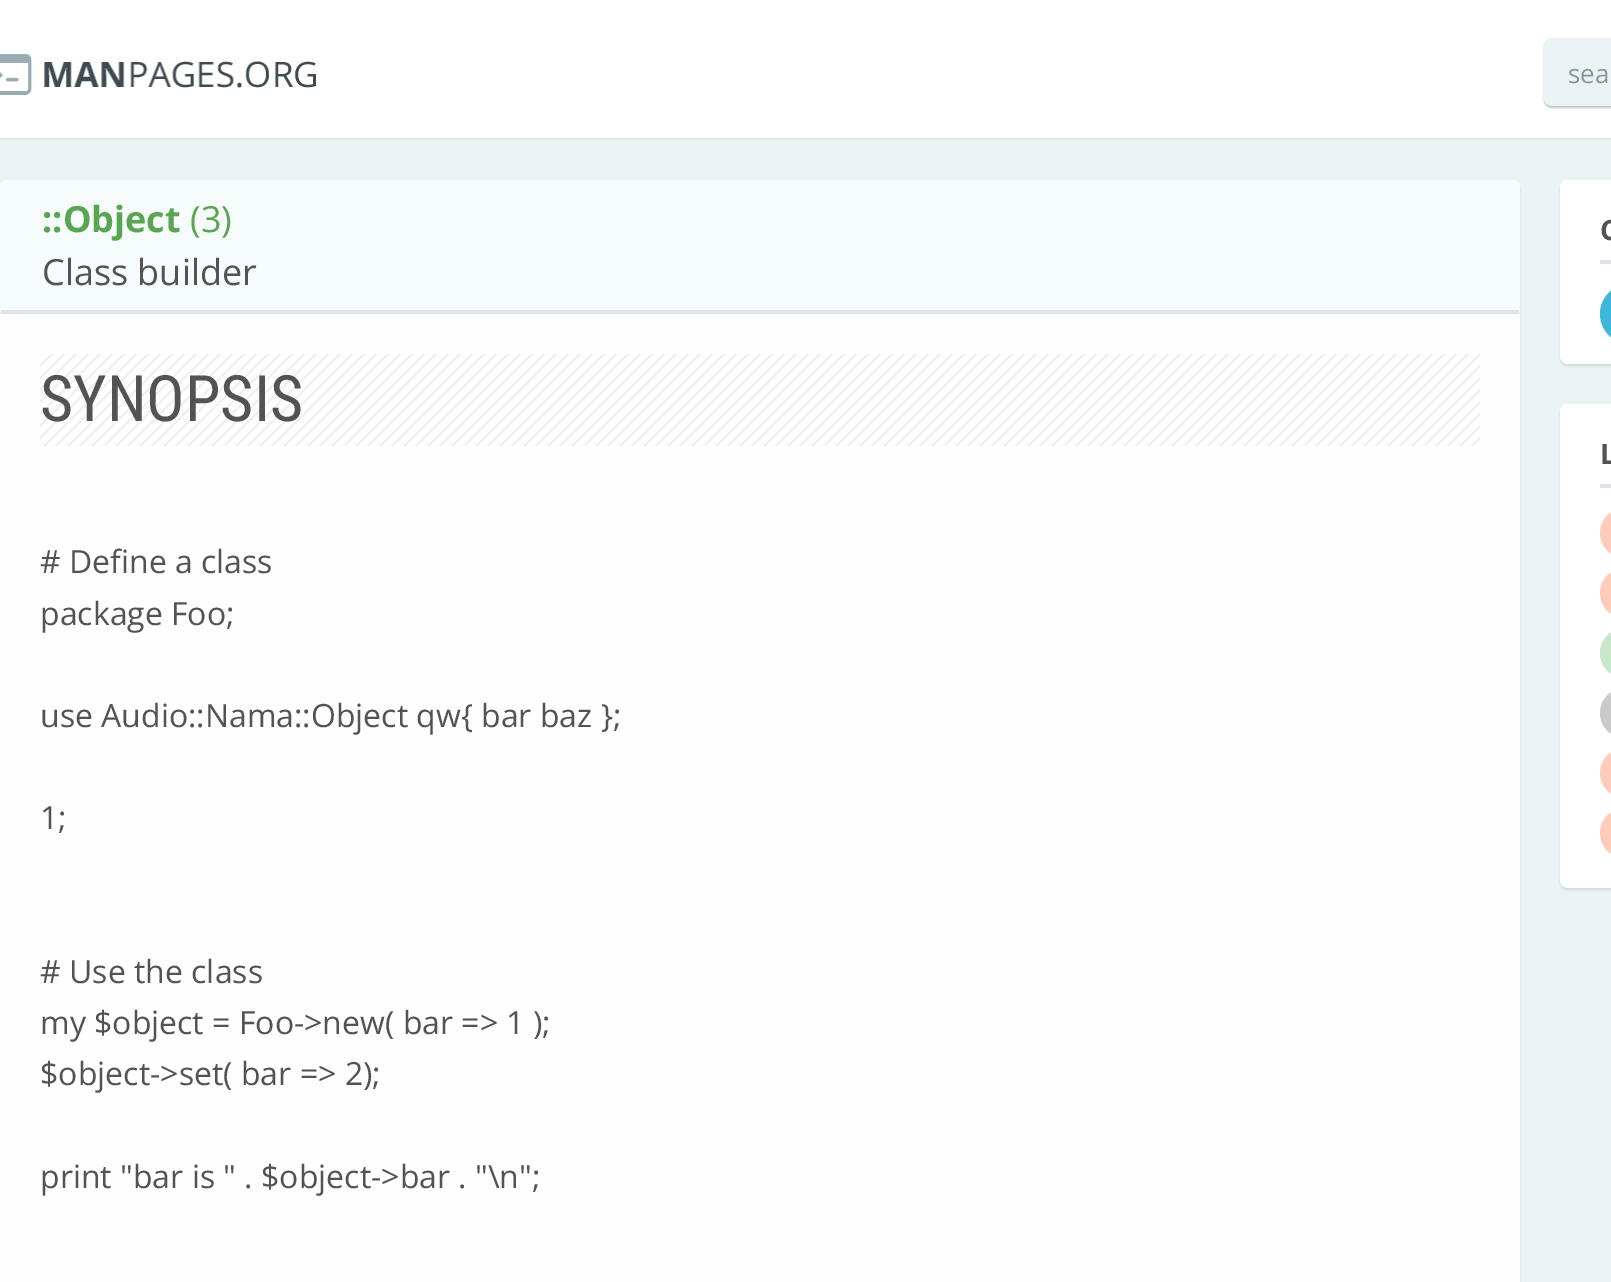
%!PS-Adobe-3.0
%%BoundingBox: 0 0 1611 1282
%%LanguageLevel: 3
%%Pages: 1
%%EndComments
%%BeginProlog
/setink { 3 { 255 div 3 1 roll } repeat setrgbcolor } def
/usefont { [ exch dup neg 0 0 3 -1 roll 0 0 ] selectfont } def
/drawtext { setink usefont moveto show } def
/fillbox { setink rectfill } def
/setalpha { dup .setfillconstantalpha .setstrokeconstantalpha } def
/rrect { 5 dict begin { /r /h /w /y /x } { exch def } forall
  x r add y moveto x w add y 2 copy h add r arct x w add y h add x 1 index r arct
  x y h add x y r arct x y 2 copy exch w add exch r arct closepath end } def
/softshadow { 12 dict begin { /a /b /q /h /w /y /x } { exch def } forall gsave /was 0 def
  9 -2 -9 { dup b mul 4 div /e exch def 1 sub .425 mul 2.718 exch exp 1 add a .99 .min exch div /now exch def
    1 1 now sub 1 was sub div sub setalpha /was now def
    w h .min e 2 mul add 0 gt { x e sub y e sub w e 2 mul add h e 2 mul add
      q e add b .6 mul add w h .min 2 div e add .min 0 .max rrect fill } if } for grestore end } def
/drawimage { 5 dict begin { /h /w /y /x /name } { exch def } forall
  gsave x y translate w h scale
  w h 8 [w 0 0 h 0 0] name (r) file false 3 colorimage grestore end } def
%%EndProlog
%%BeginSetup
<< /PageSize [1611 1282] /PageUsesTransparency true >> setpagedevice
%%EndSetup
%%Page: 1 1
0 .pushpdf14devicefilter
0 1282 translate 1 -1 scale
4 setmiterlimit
0 0 1611 1282 234 242 244 fillbox
0 0 1611 138 255 255 255 fillbox
0 138 1611 2 220 229 231 fillbox
(assets/img1.rgb) 0 54 316 41 drawimage
6 47 55 setink
1544 40 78 68 8 1 0.3 softshadow
234 242 244 setink
1544 38 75 68 8 rrect fill
(sea) 1568 83 /OpenSans-Regular 26 134 150 157 drawtext
0 0 0 setink
0 182 1520 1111 8 1 0.1 softshadow
254 254 254 setink
8 180 moveto 1512 180 lineto 1516.5 180 1520 183.5 1520 188 curveto 1520 1282 lineto 0 1282 lineto 0 188 lineto 0 183.5 3.5 180 8 180 curveto closepath fill
246 251 252 setink
6 180 moveto 1514 180 lineto 1517.5 180 1520 182.5 1520 186 curveto 1520 314 lineto 0 314 lineto 0 186 lineto 0 182.5 2.5 180 6 180 curveto closepath fill
223 227 233 setink
1520 314 moveto 1518 310 lineto 2 310 lineto 0 314 lineto closepath fill
(::Object) 42 232 /OpenSans-Bold 36 89 165 82 drawtext
(\(3\)) 190 232 /OpenSans-Regular 36 89 165 82 drawtext
(Class builder) 42 285 /OpenSans-Regular 36 83 83 83 drawtext
(assets/img2.rgb) 40 354 1440 92 drawimage
(SYNOPSIS) 40 421 /RobotoCondensed-Regular 64 83 83 83 drawtext
(# Define a class) 40 573 /OpenSans-Regular 32 83 83 83 drawtext
(package Foo;) 40 625 /OpenSans-Regular 32 83 83 83 drawtext
(use Audio::Nama::Object qw{ bar baz };) 40 727 /OpenSans-Regular 32 83 83 83 drawtext
(1;) 40 829 /OpenSans-Regular 32 83 83 83 drawtext
(# Use the class) 40 983 /OpenSans-Regular 32 83 83 83 drawtext
(my $object = Foo->new\( bar => 1 \);) 40 1034 /OpenSans-Regular 32 83 83 83 drawtext
($object->set\( bar => 2\);) 40 1085 /OpenSans-Regular 32 83 83 83 drawtext
(print "bar is " . $object->bar . "\\n";) 40 1188 /OpenSans-Regular 32 83 83 83 drawtext
0 0 0 setink
1560 182 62 184 8 1 0.1 softshadow
255 255 255 setink
1568 180 moveto 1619 180 lineto 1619 364 lineto 1568 364 lineto 1563.5 364 1560 360.5 1560 356 curveto 1560 188 lineto 1560 183.5 1563.5 180 1568 180 curveto closepath fill
1600 260 11 4 223 227 233 fillbox
(C) 1600 240 /OpenSans-Bold 28 83 83 83 drawtext
61 184 219 setink
1600 284 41 60 30 rrect fill
0 0 0 setink
1560 406 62 484 8 1 0.1 softshadow
255 255 255 setink
1568 404 moveto 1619 404 lineto 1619 888 lineto 1568 888 lineto 1563.5 888 1560 884.5 1560 880 curveto 1560 412 lineto 1560 407.5 1563.5 404 1568 404 curveto closepath fill
1600 484 11 4 223 227 233 fillbox
(L) 1600 464 /OpenSans-Bold 28 83 83 83 drawtext
255 204 188 setink
1600 508 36 50 25 rrect fill
1600 568 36 50 25 rrect fill
200 230 201 setink
1600 628 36 50 25 rrect fill
202 202 202 setink
1600 688 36 50 25 rrect fill
255 204 188 setink
1600 748 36 50 25 rrect fill
1600 808 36 50 25 rrect fill
.poppdf14devicefilter showpage
%%EOF
